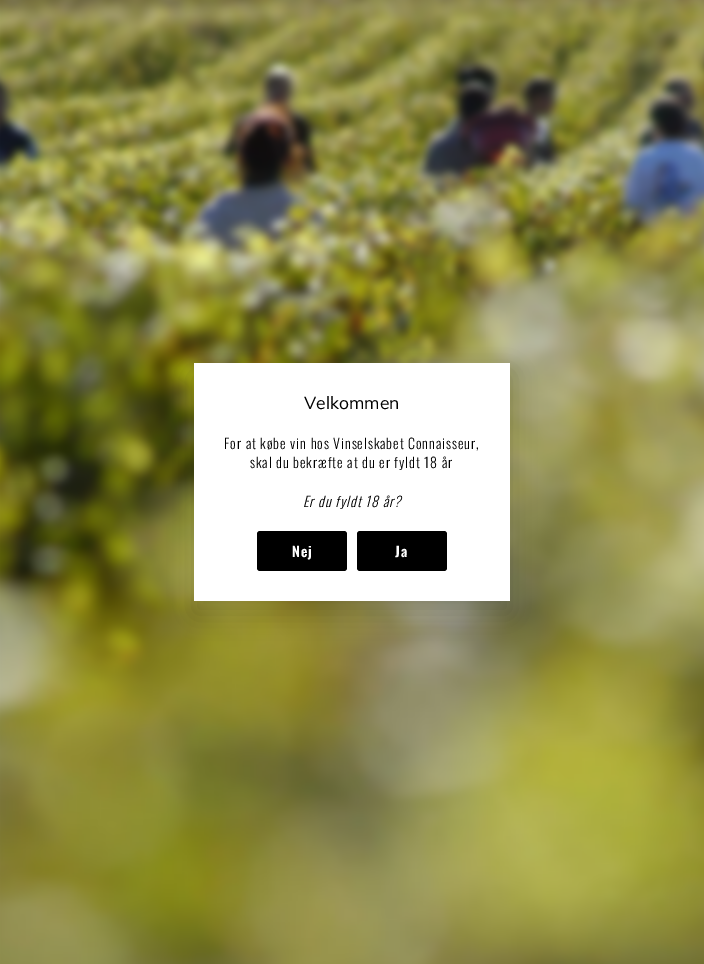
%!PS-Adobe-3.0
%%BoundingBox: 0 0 704 964
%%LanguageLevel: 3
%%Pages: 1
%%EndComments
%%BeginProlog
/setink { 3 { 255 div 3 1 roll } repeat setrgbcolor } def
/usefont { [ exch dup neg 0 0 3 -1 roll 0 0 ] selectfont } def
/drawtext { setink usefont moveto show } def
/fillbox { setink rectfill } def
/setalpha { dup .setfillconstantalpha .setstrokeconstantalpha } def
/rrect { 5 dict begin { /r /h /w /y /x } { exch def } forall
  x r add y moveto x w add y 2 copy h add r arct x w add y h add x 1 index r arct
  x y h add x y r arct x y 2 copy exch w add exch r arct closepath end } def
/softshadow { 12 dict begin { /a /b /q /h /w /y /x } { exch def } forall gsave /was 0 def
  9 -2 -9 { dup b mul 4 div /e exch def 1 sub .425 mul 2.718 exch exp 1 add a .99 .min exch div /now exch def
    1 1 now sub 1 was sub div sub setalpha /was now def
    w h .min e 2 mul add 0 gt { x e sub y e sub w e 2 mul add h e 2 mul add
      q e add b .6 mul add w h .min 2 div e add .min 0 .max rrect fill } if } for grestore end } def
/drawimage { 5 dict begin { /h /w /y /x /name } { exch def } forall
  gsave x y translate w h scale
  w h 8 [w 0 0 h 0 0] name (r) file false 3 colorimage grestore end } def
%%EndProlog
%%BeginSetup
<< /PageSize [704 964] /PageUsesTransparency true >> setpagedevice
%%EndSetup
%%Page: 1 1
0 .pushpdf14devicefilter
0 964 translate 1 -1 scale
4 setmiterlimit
0 0 704 964 255 255 255 fillbox
(assets/img1.rgb) 0 0 704 964 drawimage
0 0 0 setink
194 375 316 238 0 12.5 0.15 softshadow
194 363 316 238 255 255 255 fillbox
(Velkommen) 304 409 /Muli-Regular 17.5 0 0 0 drawtext
/Oswald-Light 14 usefont
224 449 moveto 0.9 0 (For at købe vin hos Vinselskabet Connaisseur,) ashow
250 468 moveto 0.9 0 (skal du bekræfte at du er fyldt 18 år) ashow
/Oswald-LightItalic 14 usefont
303 507 moveto 0.9 0 (Er du fyldt 18 år?) ashow
257 531 90 40 3 rrect fill
/Oswald-SemiBold 14 usefont
255 255 255 setink
292 557 moveto 1 0 (Nej) ashow
0 0 0 setink
357 531 90 40 3 rrect fill
255 255 255 setink
395 557 moveto 1 0 (Ja) ashow
.poppdf14devicefilter showpage
%%EOF
